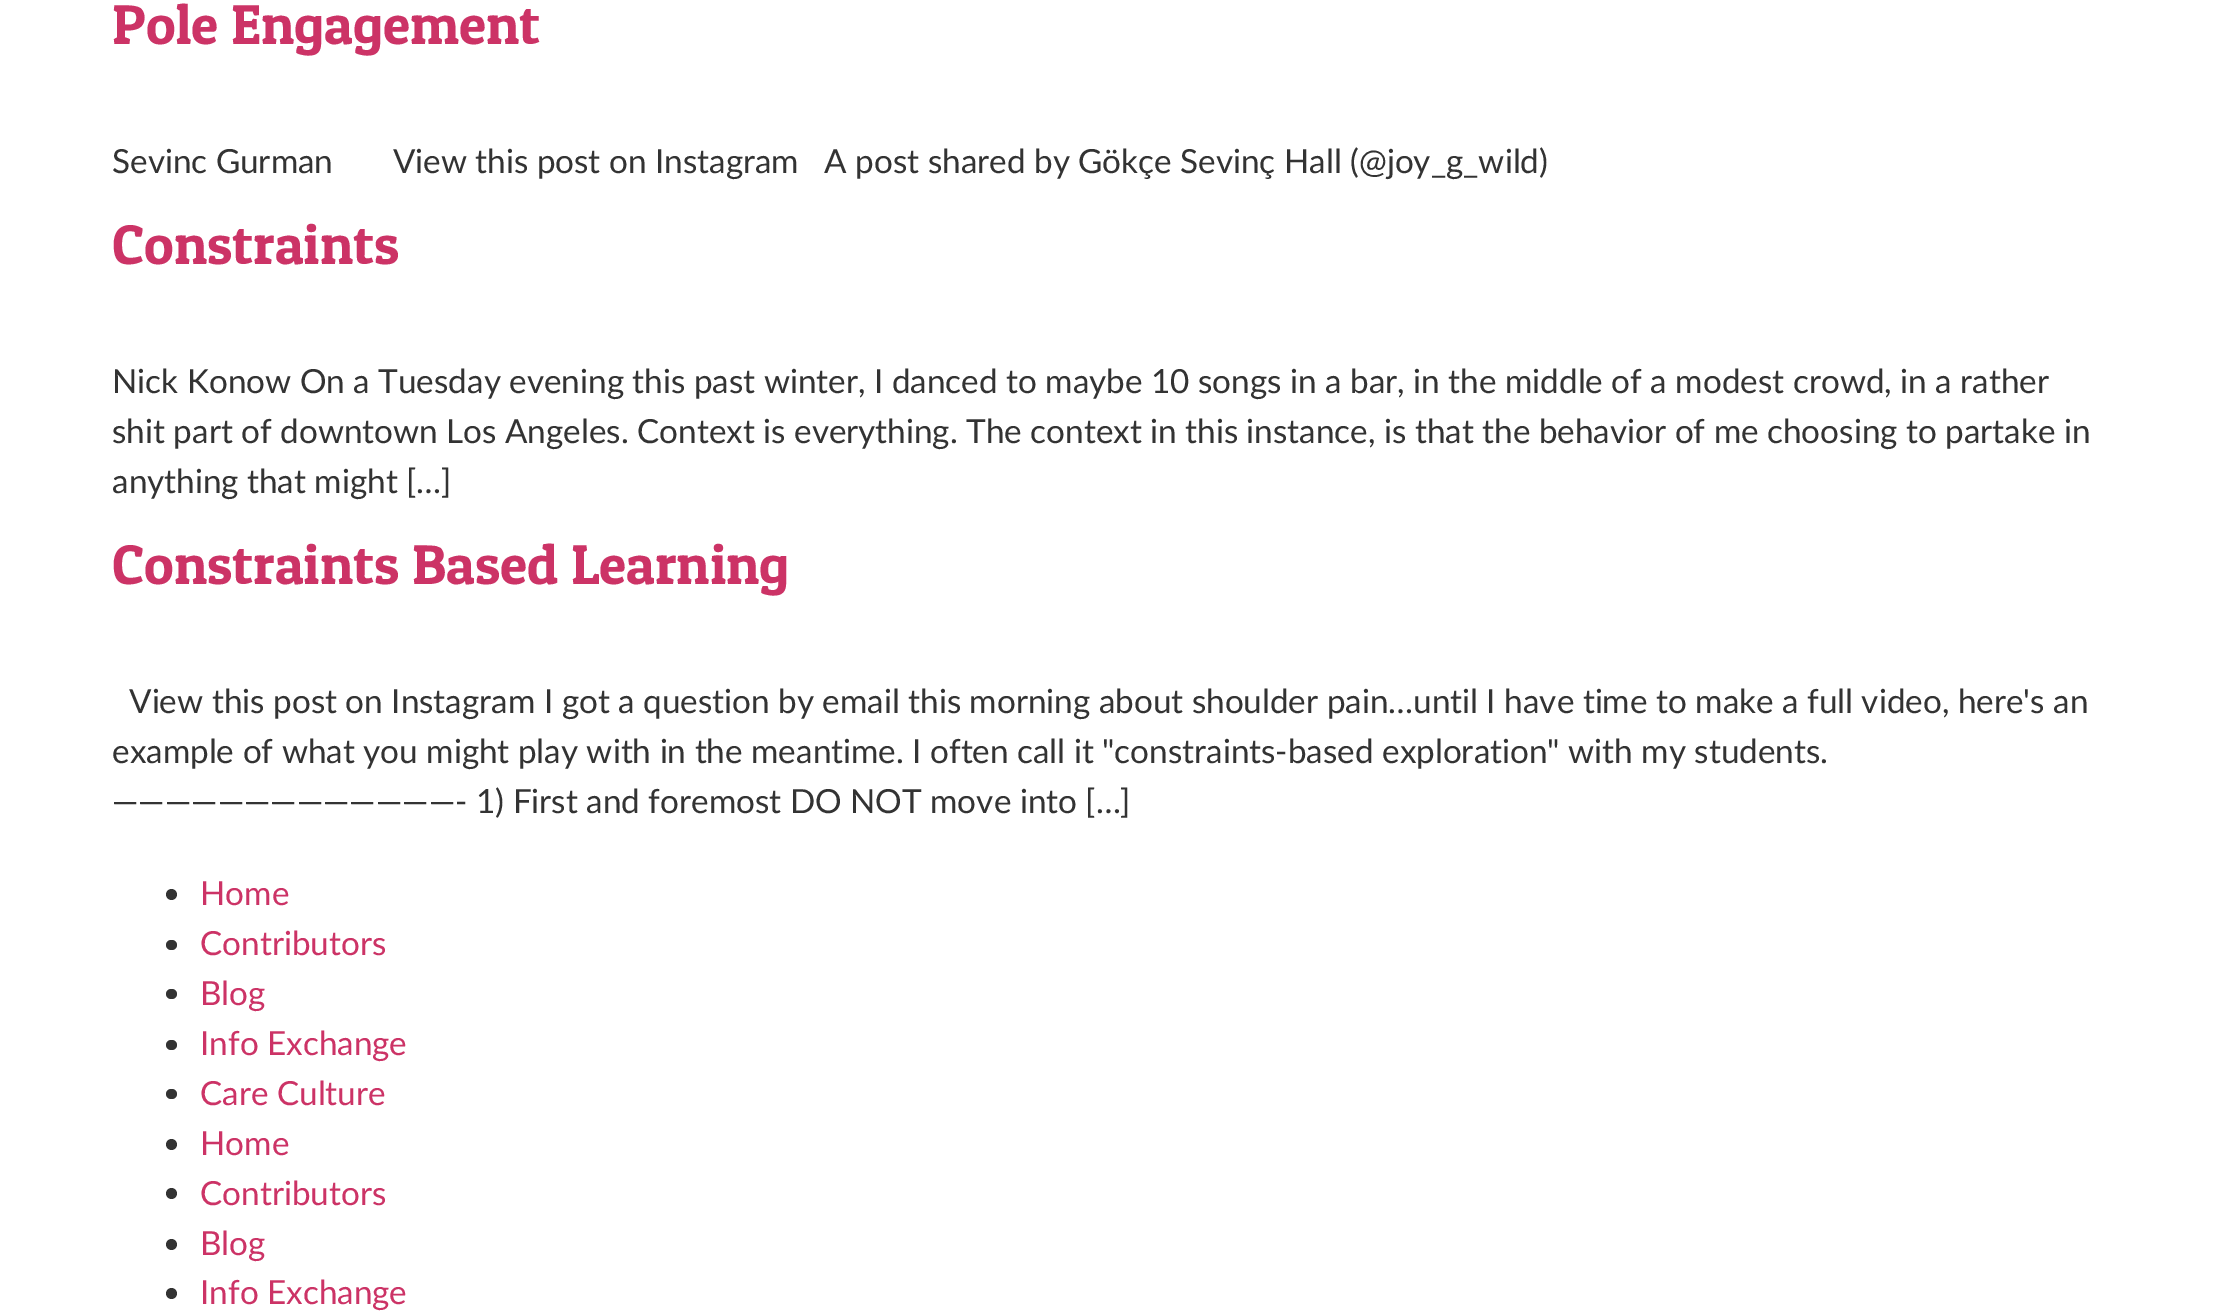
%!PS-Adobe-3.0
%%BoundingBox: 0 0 2219 1311
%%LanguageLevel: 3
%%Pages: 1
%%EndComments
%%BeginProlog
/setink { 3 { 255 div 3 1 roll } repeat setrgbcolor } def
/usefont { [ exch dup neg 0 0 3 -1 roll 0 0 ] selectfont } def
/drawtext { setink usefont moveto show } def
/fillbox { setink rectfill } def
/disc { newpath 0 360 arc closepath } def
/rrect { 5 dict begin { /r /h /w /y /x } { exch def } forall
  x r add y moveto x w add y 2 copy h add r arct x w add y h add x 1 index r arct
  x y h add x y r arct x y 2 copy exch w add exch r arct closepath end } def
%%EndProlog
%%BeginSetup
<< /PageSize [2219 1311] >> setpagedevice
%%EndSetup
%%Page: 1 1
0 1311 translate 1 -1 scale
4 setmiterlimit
0 0 2219 1311 255 255 255 fillbox
(Pole Engagement) 112 44 /PatuaOne-Regular 56 204 51 102 drawtext
(Sevinc Gurman       View this post on Instagram   A post shared by Gökçe Sevinç Hall \(@joy_g_wild\)) 112 173 /Lato-Regular 33.25 51 51 51 drawtext
(Constraints) 112 264 /PatuaOne-Regular 56 204 51 102 drawtext
(Nick Konow On a Tuesday evening this past winter, I danced to maybe 10 songs in a bar, in the middle of a modest crowd, in a rather) 112 393 /Lato-Regular 33.25 51 51 51 drawtext
(shit part of downtown Los Angeles. Context is everything. The context in this instance, is that the behavior of me choosing to partake in) 112 443 /Lato-Regular 33.25 51 51 51 drawtext
(anything that might […]) 112 493 /Lato-Regular 33.25 51 51 51 drawtext
(Constraints Based Learning) 112 584 /PatuaOne-Regular 56 204 51 102 drawtext
(View this post on Instagram I got a question by email this morning about shoulder pain…until I have time to make a full video, here's an) 129 713 /Lato-Regular 33.25 51 51 51 drawtext
(example of what you might play with in the meantime. I often call it "constraints-based exploration" with my students.) 112 763 /Lato-Regular 33.25 51 51 51 drawtext
(—————————————- 1\) First and foremost DO NOT move into […]) 112 813 /Lato-Regular 33.25 51 51 51 drawtext
171.5 894.5 5.5 disc fill
(Home) 200 905 /Lato-Regular 33.25 204 51 102 drawtext
51 51 51 setink
166 940 11 10 5 rrect fill
(Contributors) 200 955 /Lato-Regular 33.25 204 51 102 drawtext
51 51 51 setink
166 989 11 10 5 rrect fill
(Blog) 200 1005 /Lato-Regular 33.25 204 51 102 drawtext
51 51 51 setink
166 1040 11 10 5 rrect fill
(Info Exchange) 200 1055 /Lato-Regular 33.25 204 51 102 drawtext
51 51 51 setink
166 1089 11 10 5 rrect fill
(Care Culture) 200 1105 /Lato-Regular 33.25 204 51 102 drawtext
51 51 51 setink
171.5 1144.5 5.5 disc fill
(Home) 200 1155 /Lato-Regular 33.25 204 51 102 drawtext
51 51 51 setink
171.5 1193.5 5.5 disc fill
(Contributors) 200 1205 /Lato-Regular 33.25 204 51 102 drawtext
51 51 51 setink
171.5 1244.5 5.5 disc fill
(Blog) 200 1255 /Lato-Regular 33.25 204 51 102 drawtext
51 51 51 setink
171.5 1293.5 5.5 disc fill
(Info Exchange) 200 1304 /Lato-Regular 33.25 204 51 102 drawtext
showpage
%%EOF
